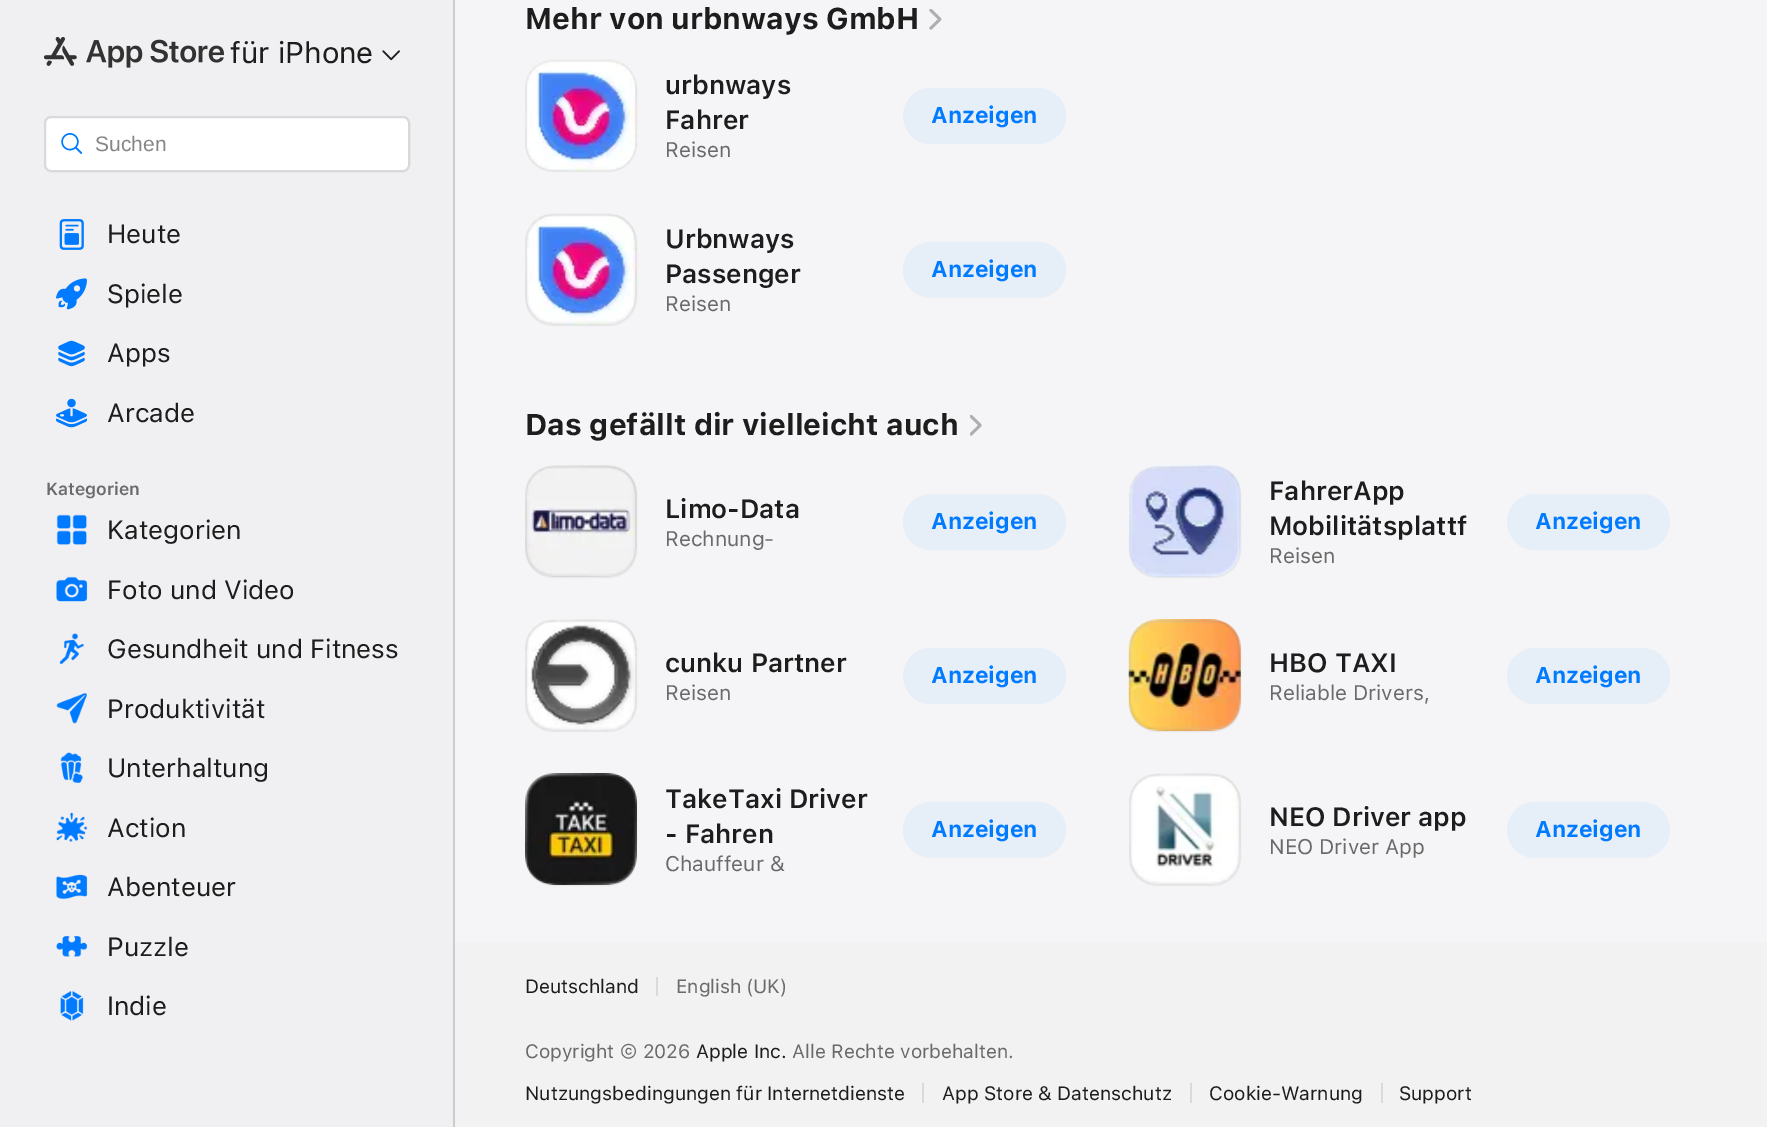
%!PS-Adobe-3.0
%%BoundingBox: 0 0 1767 1127
%%LanguageLevel: 3
%%Pages: 1
%%EndComments
%%BeginProlog
/setink { 3 { 255 div 3 1 roll } repeat setrgbcolor } def
/usefont { [ exch dup neg 0 0 3 -1 roll 0 0 ] selectfont } def
/drawtext { setink usefont moveto show } def
/fillbox { setink rectfill } def
/setalpha { dup .setfillconstantalpha .setstrokeconstantalpha } def
/rrect { 5 dict begin { /r /h /w /y /x } { exch def } forall
  x r add y moveto x w add y 2 copy h add r arct x w add y h add x 1 index r arct
  x y h add x y r arct x y 2 copy exch w add exch r arct closepath end } def
/drawimage { 5 dict begin { /h /w /y /x /name } { exch def } forall
  gsave x y translate w h scale
  w h 8 [w 0 0 h 0 0] name (r) file false 3 colorimage grestore end } def
%%EndProlog
%%BeginSetup
<< /PageSize [1767 1127] /PageUsesTransparency true >> setpagedevice
%%EndSetup
%%Page: 1 1
0 .pushpdf14devicefilter
0 1127 translate 1 -1 scale
4 setmiterlimit
0 0 1767 1127 245 245 247 fillbox
0 0 453 1127 240 240 242 fillbox
453 0 2 1127 204 204 206 fillbox
(assets/img1.rgb) 44 37 180 31 drawimage
(für iPhone) 230 63 /SF-Regular 29.75 29 29 29 drawtext
(assets/img2.rgb) 382 50 18 11 drawimage
255 255 255 setink
44 116 366 56 7 rrect fill
0.15 setalpha
0 0 0 setink
2 setlinewidth
45 117 364 54 6 rrect stroke
1 setalpha
(assets/img3.rgb) 61 133 21 21 drawimage
(Suchen) 95 151 /LiberationSans-Regular 21 133 133 133 drawtext
(assets/img4.rgb) 59 219 25 31 drawimage
(Heute) 107 243 /SF-Regular 26.25 29 29 29 drawtext
(assets/img5.rgb) 56 278 31 32 drawimage
(Spiele) 107 303 /SF-Regular 26.25 29 29 29 drawtext
(assets/img6.rgb) 58 340 27 27 drawimage
(Apps) 107 362 /SF-Regular 26.25 29 29 29 drawtext
(assets/img7.rgb) 56 398 31 30 drawimage
(Arcade) 107 422 /SF-Regular 26.25 29 29 29 drawtext
(Kategorien) 46 495 /SF-SemiBold 17.5 106 106 106 drawtext
(assets/img8.rgb) 56 514 31 31 drawimage
(Kategorien) 107 539 /SF-Regular 26.25 29 29 29 drawtext
(assets/img9.rgb) 56 576 32 26 drawimage
(Foto und Video) 107 599 /SF-Regular 26.25 29 29 29 drawtext
(assets/img10.rgb) 59 633 26 32 drawimage
(Gesundheit und Fitness) 107 658 /SF-Regular 26.25 29 29 29 drawtext
(assets/img11.rgb) 56 693 31 31 drawimage
(Produktivität) 107 718 /SF-Regular 26.25 29 29 29 drawtext
(assets/img12.rgb) 60 752 23 31 drawimage
(Unterhaltung) 107 777 /SF-Regular 26.25 29 29 29 drawtext
(assets/img13.rgb) 56 812 32 31 drawimage
(Action) 107 837 /SF-Regular 26.25 29 29 29 drawtext
(assets/img14.rgb) 56 874 32 26 drawimage
(Abenteuer) 107 896 /SF-Regular 26.25 29 29 29 drawtext
(assets/img15.rgb) 56 936 32 21 drawimage
(Puzzle) 107 956 /SF-Regular 26.25 29 29 29 drawtext
(assets/img16.rgb) 60 990 24 31 drawimage
(Indie) 107 1015 /SF-Regular 26.25 29 29 29 drawtext
(Mehr von urbnways GmbH) 525 29 /SF-Bold 29.75 29 29 29 drawtext
(assets/img17.rgb) 929 9 13 21 drawimage
(assets/img18.rgb) 525 59 112 112 drawimage
0.1 setalpha
128 128 128 setink
526 61 110 110 27 rrect stroke
1 setalpha
(urbnways) 665 94 /SF-SemiBold 26.25 29 29 29 drawtext
(Fahrer) 665 129 /SF-SemiBold 26.25 29 29 29 drawtext
(Reisen) 665 157 /SF-Regular 21 106 106 106 drawtext
230 238 247 setink
903 88 163 56 28 rrect fill
(Anzeigen) 931 123 /SF-Bold 22.75 0 122 255 drawtext
(assets/img19.rgb) 525 213 112 112 drawimage
0.1 setalpha
128 128 128 setink
526 215 110 110 27 rrect stroke
1 setalpha
(Urbnways) 665 248 /SF-SemiBold 26.25 29 29 29 drawtext
(Passenger) 665 283 /SF-SemiBold 26.25 29 29 29 drawtext
(Reisen) 665 311 /SF-Regular 21 106 106 106 drawtext
230 238 247 setink
903 242 163 56 28 rrect fill
(Anzeigen) 931 277 /SF-Bold 22.75 0 122 255 drawtext
(Das gefällt dir vielleicht auch) 525 435 /SF-Bold 29.75 29 29 29 drawtext
(assets/img20.rgb) 970 415 12 21 drawimage
(assets/img21.rgb) 525 465 112 112 drawimage
0.1 setalpha
128 128 128 setink
526 467 110 110 27 rrect stroke
1 setalpha
(Limo-Data) 665 518 /SF-SemiBold 26.25 29 29 29 drawtext
(Rechnung-) 665 546 /SF-Regular 21 106 106 106 drawtext
230 238 247 setink
903 494 163 56 28 rrect fill
(Anzeigen) 931 529 /SF-Bold 22.75 0 122 255 drawtext
(assets/img22.rgb) 1128 465 113 112 drawimage
0.1 setalpha
128 128 128 setink
1130 467 110 110 27 rrect stroke
1 setalpha
(FahrerApp) 1269 500 /SF-SemiBold 26.25 29 29 29 drawtext
(Mobilitätsplattf) 1269 535 /SF-SemiBold 26.25 29 29 29 drawtext
(Reisen) 1269 563 /SF-Regular 21 106 106 106 drawtext
230 238 247 setink
1507 494 163 56 28 rrect fill
(Anzeigen) 1535 529 /SF-Bold 22.75 0 122 255 drawtext
(assets/img23.rgb) 525 619 112 112 drawimage
0.1 setalpha
128 128 128 setink
526 621 110 110 27 rrect stroke
1 setalpha
(cunku Partner) 665 672 /SF-SemiBold 26.25 29 29 29 drawtext
(Reisen) 665 700 /SF-Regular 21 106 106 106 drawtext
230 238 247 setink
903 648 163 56 28 rrect fill
(Anzeigen) 931 683 /SF-Bold 22.75 0 122 255 drawtext
(assets/img24.rgb) 1128 619 113 112 drawimage
0.1 setalpha
128 128 128 setink
1130 621 110 110 27 rrect stroke
1 setalpha
(HBO TAXI) 1269 672 /SF-SemiBold 26.25 29 29 29 drawtext
(Reliable Drivers,) 1269 700 /SF-Regular 21 106 106 106 drawtext
230 238 247 setink
1507 648 163 56 28 rrect fill
(Anzeigen) 1535 683 /SF-Bold 22.75 0 122 255 drawtext
(assets/img25.rgb) 525 773 112 112 drawimage
0.1 setalpha
128 128 128 setink
526 775 110 110 27 rrect stroke
1 setalpha
(TakeTaxi Driver) 665 808 /SF-SemiBold 26.25 29 29 29 drawtext
(- Fahren) 665 843 /SF-SemiBold 26.25 29 29 29 drawtext
(Chauffeur &) 665 871 /SF-Regular 21 106 106 106 drawtext
230 238 247 setink
903 802 163 56 28 rrect fill
(Anzeigen) 931 837 /SF-Bold 22.75 0 122 255 drawtext
(assets/img26.rgb) 1129 773 112 112 drawimage
0.1 setalpha
128 128 128 setink
1130 775 110 110 27 rrect stroke
1 setalpha
(NEO Driver app) 1269 826 /SF-SemiBold 26.25 29 29 29 drawtext
(NEO Driver App) 1269 854 /SF-Regular 21 106 106 106 drawtext
230 238 247 setink
1507 802 163 56 28 rrect fill
(Anzeigen) 1535 837 /SF-Bold 22.75 0 122 255 drawtext
455 942 1312 185 242 242 242 fillbox
(Deutschland) 525 993 /SF-Regular 19.25 29 29 29 drawtext
656 977 2 19 218 218 218 fillbox
106 106 106 setink
676 993 moveto -1 0 32 (English \(UK\)) widthshow
(Copyright © 2026) 525 1058 /SF-Regular 19.25 106 106 106 drawtext
(Apple Inc.) 696 1058 /SF-Regular 19.25 29 29 29 drawtext
(Alle Rechte vorbehalten.) 792 1058 /SF-Regular 19.25 106 106 106 drawtext
(Nutzungsbedingungen für Internetdienste) 525 1100 /SF-Regular 19.25 29 29 29 drawtext
922 1083 2 20 218 218 218 fillbox
(App Store & Datenschutz) 942 1100 /SF-Regular 19.25 29 29 29 drawtext
1190 1083 2 20 218 218 218 fillbox
(Cookie-Warnung) 1209 1100 /SF-Regular 19.25 29 29 29 drawtext
1381 1083 2 20 218 218 218 fillbox
(Support) 1399 1100 /SF-Regular 19.25 29 29 29 drawtext
.poppdf14devicefilter showpage
%%EOF
